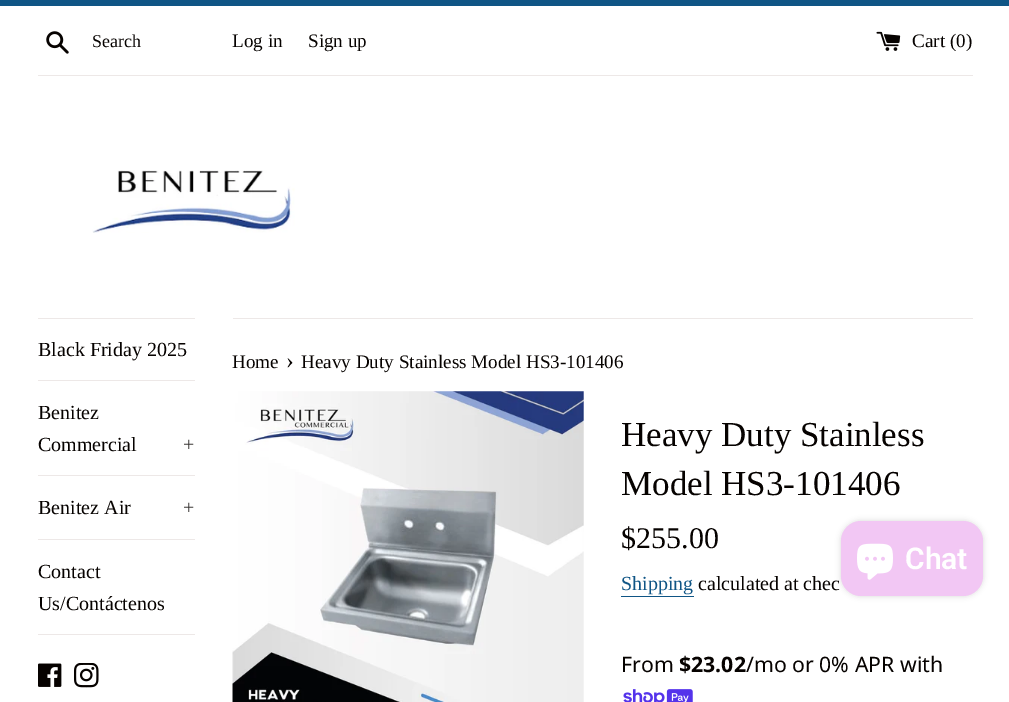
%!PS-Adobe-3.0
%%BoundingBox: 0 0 1009 702
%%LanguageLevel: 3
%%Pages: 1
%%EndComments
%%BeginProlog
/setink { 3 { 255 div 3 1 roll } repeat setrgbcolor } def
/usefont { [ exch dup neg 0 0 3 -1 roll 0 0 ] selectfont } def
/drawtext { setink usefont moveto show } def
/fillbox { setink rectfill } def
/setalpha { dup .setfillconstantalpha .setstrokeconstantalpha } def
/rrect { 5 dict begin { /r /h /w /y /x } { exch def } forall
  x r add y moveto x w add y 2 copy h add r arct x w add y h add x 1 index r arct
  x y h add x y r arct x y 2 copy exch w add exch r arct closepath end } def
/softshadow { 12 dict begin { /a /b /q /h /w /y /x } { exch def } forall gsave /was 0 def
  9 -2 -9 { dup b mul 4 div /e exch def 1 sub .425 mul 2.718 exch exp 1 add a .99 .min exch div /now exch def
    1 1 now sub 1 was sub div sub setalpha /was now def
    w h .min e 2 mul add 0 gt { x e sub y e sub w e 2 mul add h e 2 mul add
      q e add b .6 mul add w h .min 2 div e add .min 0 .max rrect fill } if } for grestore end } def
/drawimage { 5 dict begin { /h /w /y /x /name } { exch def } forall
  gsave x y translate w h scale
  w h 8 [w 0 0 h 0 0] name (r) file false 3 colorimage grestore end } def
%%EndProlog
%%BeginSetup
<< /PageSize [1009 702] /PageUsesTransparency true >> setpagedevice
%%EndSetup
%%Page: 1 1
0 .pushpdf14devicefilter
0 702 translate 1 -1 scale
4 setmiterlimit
0 0 1009 702 255 255 255 fillbox
0 0 1009 6 15 85 133 fillbox
(assets/img1.rgb) 46 31 23 23 drawimage
(Search) 92 47 /LiberationSerif-Regular 18 6 2 0 drawtext
(Log in) 232 47 /LiberationSerif-Regular 19.1 6 2 0 drawtext
(Sign up) 308 47 /LiberationSerif-Regular 19.1 6 2 0 drawtext
(assets/img2.rgb) 876 31 25 20 drawimage
(Cart \(0\)) 912 47 /LiberationSerif-Regular 19.1 6 2 0 drawtext
38 75 935 1 237 232 231 fillbox
(assets/img3.rgb) 92 170 203 63 drawimage
38 318 157 1 237 232 231 fillbox
38 380 157 1 237 232 231 fillbox
(Black Friday 2025) 38 356 /LiberationSerif-Regular 20 6 2 0 drawtext
38 475 157 1 237 232 231 fillbox
(Benitez) 38 419 /LiberationSerif-Regular 20 6 2 0 drawtext
(Commercial) 38 451 /LiberationSerif-Regular 20 6 2 0 drawtext
(+) 183 451 /LiberationSerif-Regular 20 56 53 51 drawtext
38 539 157 1 237 232 231 fillbox
(Benitez Air) 38 514 /LiberationSerif-Regular 20 6 2 0 drawtext
(+) 183 514 /LiberationSerif-Regular 20 56 53 51 drawtext
38 634 157 1 237 232 231 fillbox
(Contact) 38 578 /LiberationSerif-Regular 20 6 2 0 drawtext
(Us/Contáctenos) 38 610 /LiberationSerif-Regular 20 6 2 0 drawtext
(assets/img4.rgb) 38 663 24 24 drawimage
(assets/img5.rgb) 74 663 25 25 drawimage
233 318 740 1 237 232 231 fillbox
(Home) 232 368 /LiberationSerif-Regular 19.1 6 2 0 drawtext
(›) 286 368 /LiberationSerif-Regular 23 6 2 0 drawtext
(Heavy Duty Stainless Model HS3‐101406) 301 368 /LiberationSerif-Regular 19.1 6 2 0 drawtext
(assets/img6.rgb) 232 391 352 311 drawimage
(Heavy Duty Stainless) 621 446 /LiberationSerif-Regular 35 6 2 0 drawtext
(Model HS3‐101406) 621 495 /LiberationSerif-Regular 35 6 2 0 drawtext
($255.00) 621 548 /LiberationSerif-Regular 30 6 2 0 drawtext
(Shipping) 621 590 /LiberationSerif-Regular 20 15 85 133 drawtext
621 596 73 1 15 85 133 fillbox
(calculated at chec) 698 590 /LiberationSerif-Regular 20 6 2 0 drawtext
(From) 621 672 /NotoSans-Regular 21.25 6 2 0 drawtext
($23.02) 679 672 /NotoSans-Bold 21.25 6 2 0 drawtext
(/mo or 0% APR with) 746 672 /NotoSans-Regular 21.25 6 2 0 drawtext
(assets/img7.rgb) 623 689 70 13 drawimage
0 0 0 setink
841 521 142 75 20 3 0.15 softshadow
242 199 244 setink
841 521 142 75 20 rrect fill
(assets/img8.rgb) 857 543 36 37 drawimage
(Chat) 905 569 /Roboto-SemiBold 30 255 255 255 drawtext
.poppdf14devicefilter showpage
%%EOF
